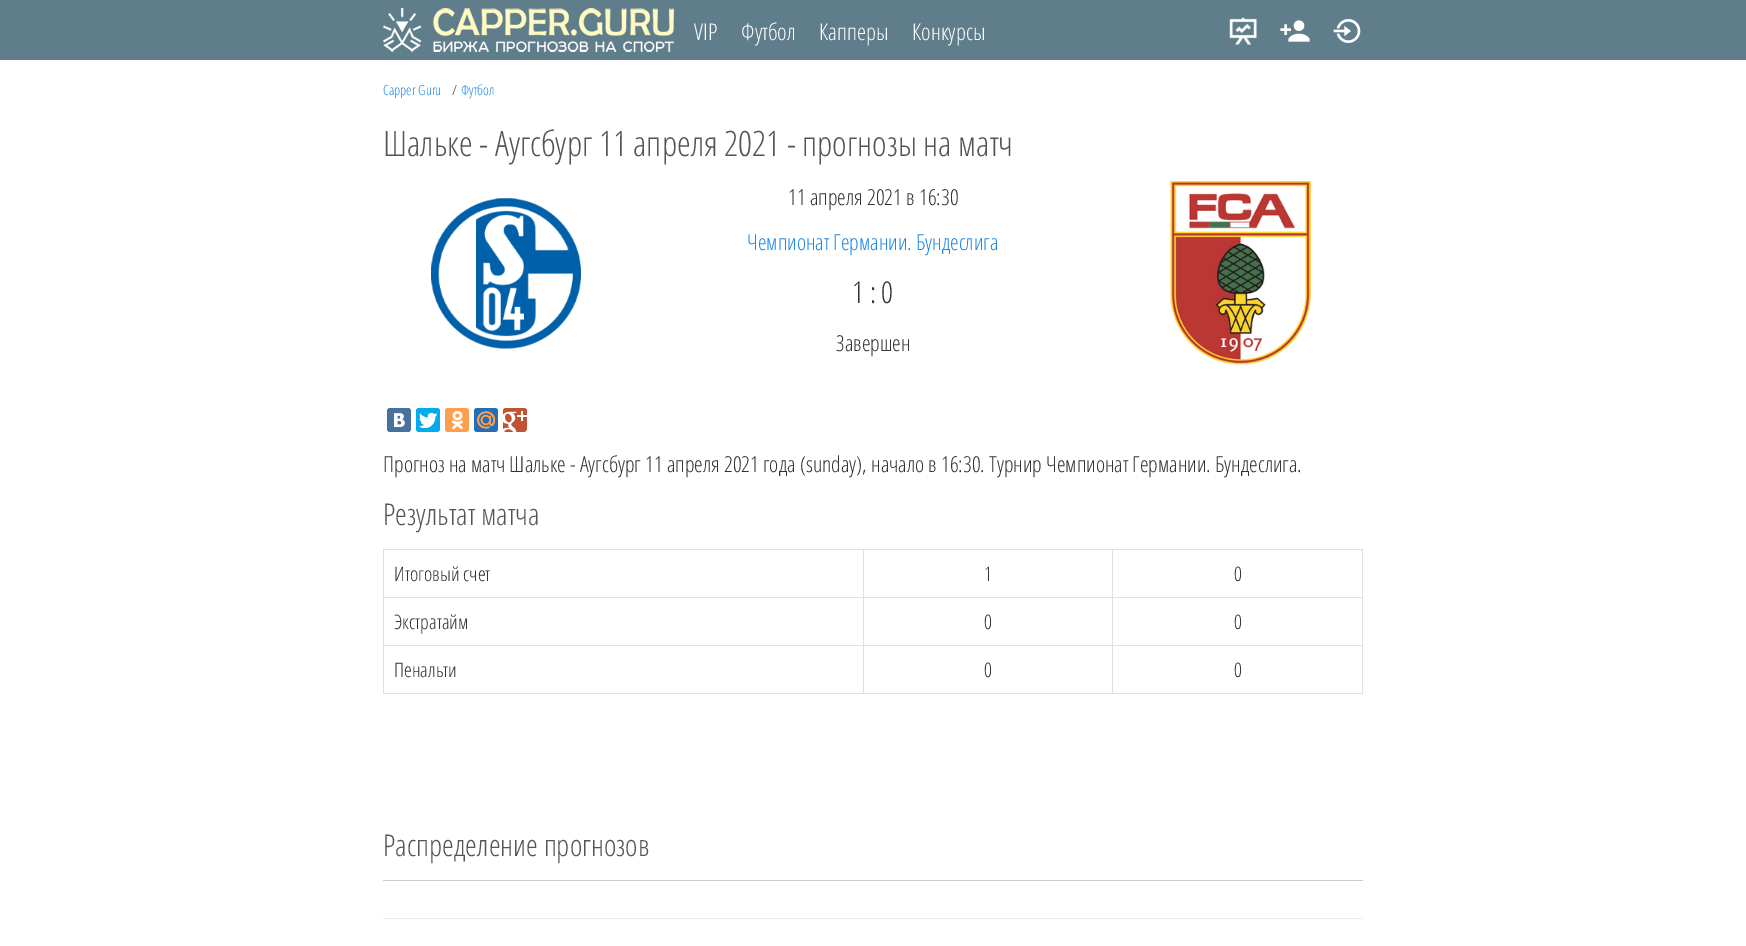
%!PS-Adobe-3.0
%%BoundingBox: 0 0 1746 946
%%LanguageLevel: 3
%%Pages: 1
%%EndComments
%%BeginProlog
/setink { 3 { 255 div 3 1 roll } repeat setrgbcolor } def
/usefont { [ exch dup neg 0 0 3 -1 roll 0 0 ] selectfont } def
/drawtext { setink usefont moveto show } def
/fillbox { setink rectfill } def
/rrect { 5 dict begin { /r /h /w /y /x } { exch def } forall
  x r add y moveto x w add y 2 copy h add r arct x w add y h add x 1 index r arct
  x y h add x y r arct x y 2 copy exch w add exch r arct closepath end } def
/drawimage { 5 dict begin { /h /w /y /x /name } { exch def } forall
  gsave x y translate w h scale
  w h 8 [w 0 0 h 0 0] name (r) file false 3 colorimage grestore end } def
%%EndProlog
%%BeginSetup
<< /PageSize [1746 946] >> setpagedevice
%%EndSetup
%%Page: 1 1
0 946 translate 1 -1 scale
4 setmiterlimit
0 0 1746 946 255 255 255 fillbox
0 0 1746 60 96 125 139 fillbox
(assets/img1.rgb) 383 8 291 44 drawimage
(VIP) 694 40 /OpenSans-Light 23 255 255 255 drawtext
(Футбол) 741 40 /OpenSans-Light 23 255 255 255 drawtext
(Капперы) 819 40 /OpenSans-Light 23 255 255 255 drawtext
(Конкурсы) 912 40 /OpenSans-Light 23 255 255 255 drawtext
(assets/img2.rgb) 1229 17 28 28 drawimage
(assets/img3.rgb) 1280 20 30 22 drawimage
(assets/img4.rgb) 1333 19 28 24 drawimage
(Capper Guru) 383 95 /OpenSans-Light 14 30 136 229 drawtext
(/) 452 95 /OpenSans-Light 14 51 51 51 drawtext
(Футбол) 461 95 /OpenSans-Light 14 30 136 229 drawtext
(Шальке - Аугсбург 11 апреля 2021 - прогнозы на матч) 383 156 /OpenSans-Light 35 85 85 85 drawtext
(assets/img5.rgb) 431 198 150 151 drawimage
(11 апреля 2021 в 16:30) 788 205 /OpenSans-Light 22 51 51 51 drawtext
(Чемпионат Германии. Бундеслига) 747 250 /OpenSans-Light 22 30 136 229 drawtext
(1 : 0) 852 303 /OpenSans-Light 30 51 51 51 drawtext
(Завершен) 836 351 /OpenSans-Light 22 51 51 51 drawtext
(assets/img6.rgb) 1170 181 141 184 drawimage
72 114 158 setink
387 408 24 24 3 rrect fill
(assets/img7.rgb) 394 413 11 14 drawimage
0 172 237 setink
416 408 24 24 3 rrect fill
(assets/img8.rgb) 419 413 18 15 drawimage
255 159 77 setink
445 408 24 24 3 rrect fill
(assets/img9.rgb) 452 411 11 18 drawimage
34 110 183 setink
474 408 24 24 3 rrect fill
(assets/img10.rgb) 477 411 18 18 drawimage
194 82 52 setink
503 408 24 24 3 rrect fill
(assets/img11.rgb) 503 411 24 21 drawimage
(Прогноз на матч Шальке - Аугсбург 11 апреля 2021 года \(sunday\), начало в 16:30. Турнир Чемпионат Германии. Бундеслига.) 383 472 /OpenSans-Light 22 51 51 51 drawtext
(Результат матча) 383 525 /OpenSans-Light 30 85 85 85 drawtext
383 549 980 1 224 224 224 fillbox
1362 549 1 145 224 224 224 fillbox
383 693 980 1 224 224 224 fillbox
383 549 1 145 224 224 224 fillbox
(Итоговый счет) 394 581 /OpenSans-Light 20 51 51 51 drawtext
1112 597 251 1 224 224 224 fillbox
1112 645 251 1 224 224 224 fillbox
1112 645 1 49 224 224 224 fillbox
863 645 250 1 224 224 224 fillbox
1112 597 1 49 224 224 224 fillbox
863 597 250 1 224 224 224 fillbox
863 645 1 49 224 224 224 fillbox
383 645 481 1 224 224 224 fillbox
863 597 1 49 224 224 224 fillbox
383 597 481 1 224 224 224 fillbox
863 549 1 49 224 224 224 fillbox
(1) 984 581 /OpenSans-Light 20 51 51 51 drawtext
1112 549 1 49 224 224 224 fillbox
(0) 1234 581 /OpenSans-Light 20 51 51 51 drawtext
(Экстратайм) 394 629 /OpenSans-Light 20 51 51 51 drawtext
(0) 984 629 /OpenSans-Light 20 51 51 51 drawtext
(0) 1234 629 /OpenSans-Light 20 51 51 51 drawtext
(Пенальти) 394 677 /OpenSans-Light 20 51 51 51 drawtext
(0) 984 677 /OpenSans-Light 20 51 51 51 drawtext
(0) 1234 677 /OpenSans-Light 20 51 51 51 drawtext
(Распределение прогнозов) 383 856 /OpenSans-Light 30 85 85 85 drawtext
383 880 980 1 204 204 204 fillbox
383 918 980 1 235 235 235 fillbox
showpage
%%EOF
